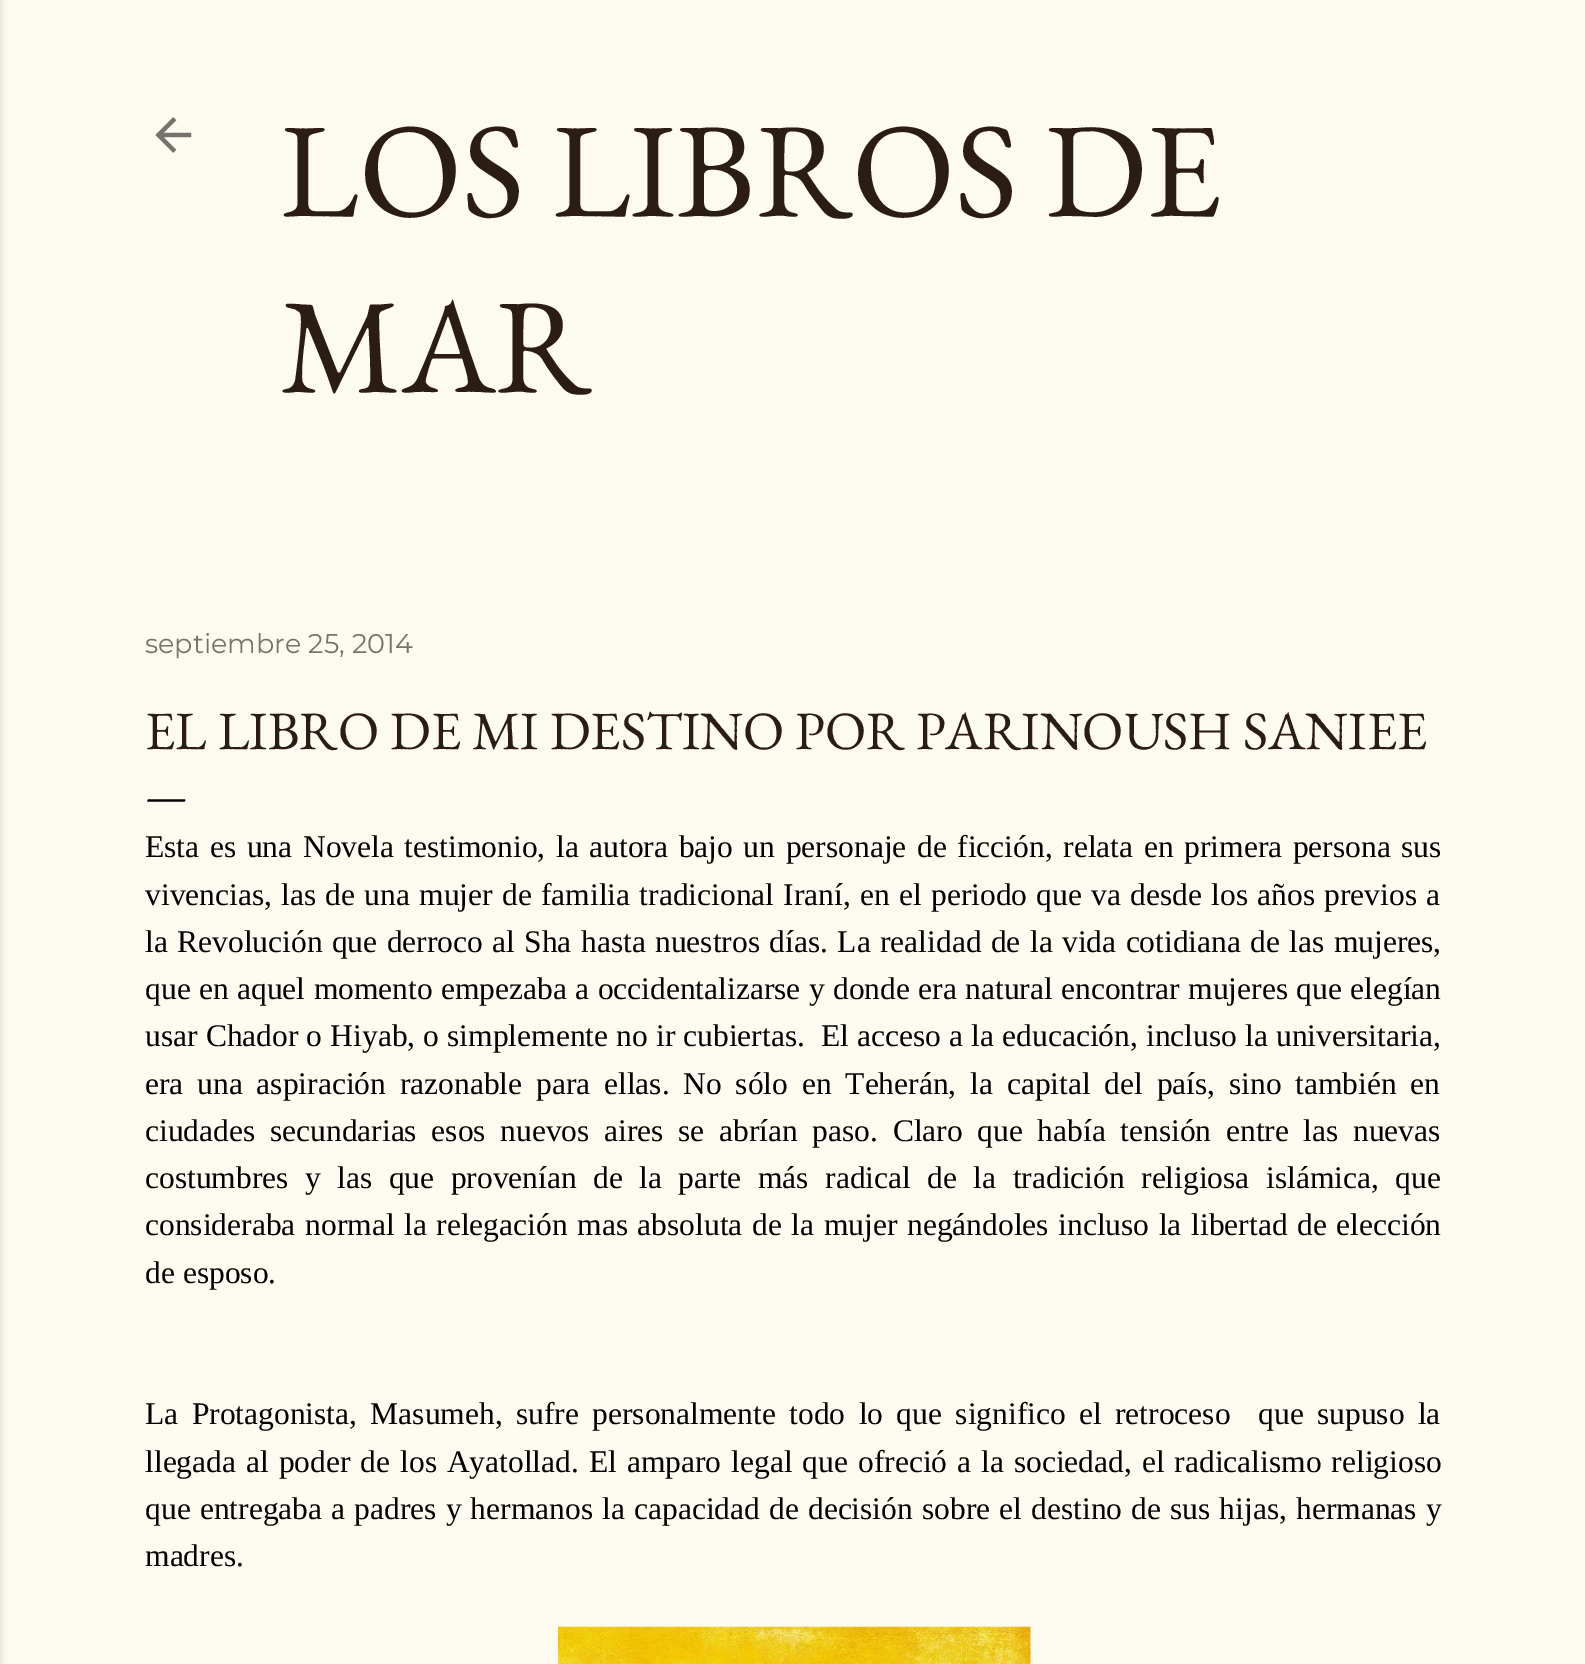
%!PS-Adobe-3.0
%%BoundingBox: 0 0 1585 1664
%%LanguageLevel: 3
%%Pages: 1
%%EndComments
%%BeginProlog
/setink { 3 { 255 div 3 1 roll } repeat setrgbcolor } def
/usefont { [ exch dup neg 0 0 3 -1 roll 0 0 ] selectfont } def
/drawtext { setink usefont moveto show } def
/fillbox { setink rectfill } def
/setalpha { dup .setfillconstantalpha .setstrokeconstantalpha } def
/rrect { 5 dict begin { /r /h /w /y /x } { exch def } forall
  x r add y moveto x w add y 2 copy h add r arct x w add y h add x 1 index r arct
  x y h add x y r arct x y 2 copy exch w add exch r arct closepath end } def
/softshadow { 12 dict begin { /a /b /q /h /w /y /x } { exch def } forall gsave /was 0 def
  9 -2 -9 { dup b mul 4 div /e exch def 1 sub .425 mul 2.718 exch exp 1 add a .99 .min exch div /now exch def
    1 1 now sub 1 was sub div sub setalpha /was now def
    w h .min e 2 mul add 0 gt { x e sub y e sub w e 2 mul add h e 2 mul add
      q e add b .6 mul add w h .min 2 div e add .min 0 .max rrect fill } if } for grestore end } def
/drawimage { 5 dict begin { /h /w /y /x /name } { exch def } forall
  gsave x y translate w h scale
  w h 8 [w 0 0 h 0 0] name (r) file false 3 colorimage grestore end } def
%%EndProlog
%%BeginSetup
<< /PageSize [1585 1664] /PageUsesTransparency true >> setpagedevice
%%EndSetup
%%Page: 1 1
0 .pushpdf14devicefilter
0 1664 translate 1 -1 scale
4 setmiterlimit
0 0 1585 1664 253 250 240 fillbox
0 0 0 setink
-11 0 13 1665 0 3.5 0.1 softshadow
(assets/img1.rgb) 155 117 37 36 drawimage
(LOS LIBROS DE) 280 216 /EBGaramond-Regular 135 44 29 20 drawtext
(MAR) 280 392 /EBGaramond-Regular 135 44 29 20 drawtext
(septiembre 25, 2014) 145 653 /Montserrat-Regular 27 116 115 110 drawtext
(EL LIBRO DE MI DESTINO POR PARINOUSH SANIEE) 145 749 /EBGaramond-Regular 54 44 29 20 drawtext
(—) 145 810 /EBGaramond-Regular 45 0 0 0 drawtext
/LiberationSerif-Regular 31.5 usefont
145 857 moveto 2.75 0 32 (Esta es una Novela testimonio, la autora bajo un personaje de ficción, relata en primera persona sus) widthshow
145 905 moveto 1.4 0 32 (vivencias, las de una mujer de familia tradicional Iraní, en el periodo que va desde los años previos a) widthshow
145 952 moveto 1.5 0 32 (la Revolución que derroco al Sha hasta nuestros días. La realidad de la vida cotidiana de las mujeres,) widthshow
145 999 moveto 0.5 0 32 (que en aquel momento empezaba a occidentalizarse y donde era natural encontrar mujeres que elegían) widthshow
145 1046 moveto 0.25 0 32 (usar Chador o Hiyab, o simplemente no ir cubiertas.) widthshow
821 1046 moveto 0.25 0 32 (El acceso a la educación, incluso la universitaria,) widthshow
145 1094 moveto 5.9 0 32 (era una aspiración razonable para ellas. No sólo en Teherán, la capital del país, sino también en) widthshow
145 1141 moveto 6.75 0 32 (ciudades secundarias esos nuevos aires se abrían paso. Claro que había tensión entre las nuevas) widthshow
145 1188 moveto 8.6 0 32 (costumbres y las que provenían de la parte más radical de la tradición religiosa islámica, que) widthshow
145 1235 moveto 1.75 0 32 (consideraba normal la relegación mas absoluta de la mujer negándoles incluso la libertad de elección) widthshow
(de esposo.) 145 1283 /LiberationSerif-Regular 31.5 0 0 0 drawtext
145 1424 moveto 5.5 0 32 (La Protagonista, Masumeh, sufre personalmente todo lo que significo el retroceso) widthshow
1258 1424 moveto 5.5 0 32 (que supuso la) widthshow
145 1472 moveto 2.1 0 32 (llegada al poder de los Ayatollad. El amparo legal que ofreció a la sociedad, el radicalismo religioso) widthshow
145 1519 moveto 1.25 0 32 (que entregaba a padres y hermanos la capacidad de decisión sobre el destino de sus hijas, hermanas y) widthshow
(madres.) 145 1566 /LiberationSerif-Regular 31.5 0 0 0 drawtext
(assets/img2.rgb) 558 1626 473 38 drawimage
.poppdf14devicefilter showpage
%%EOF
